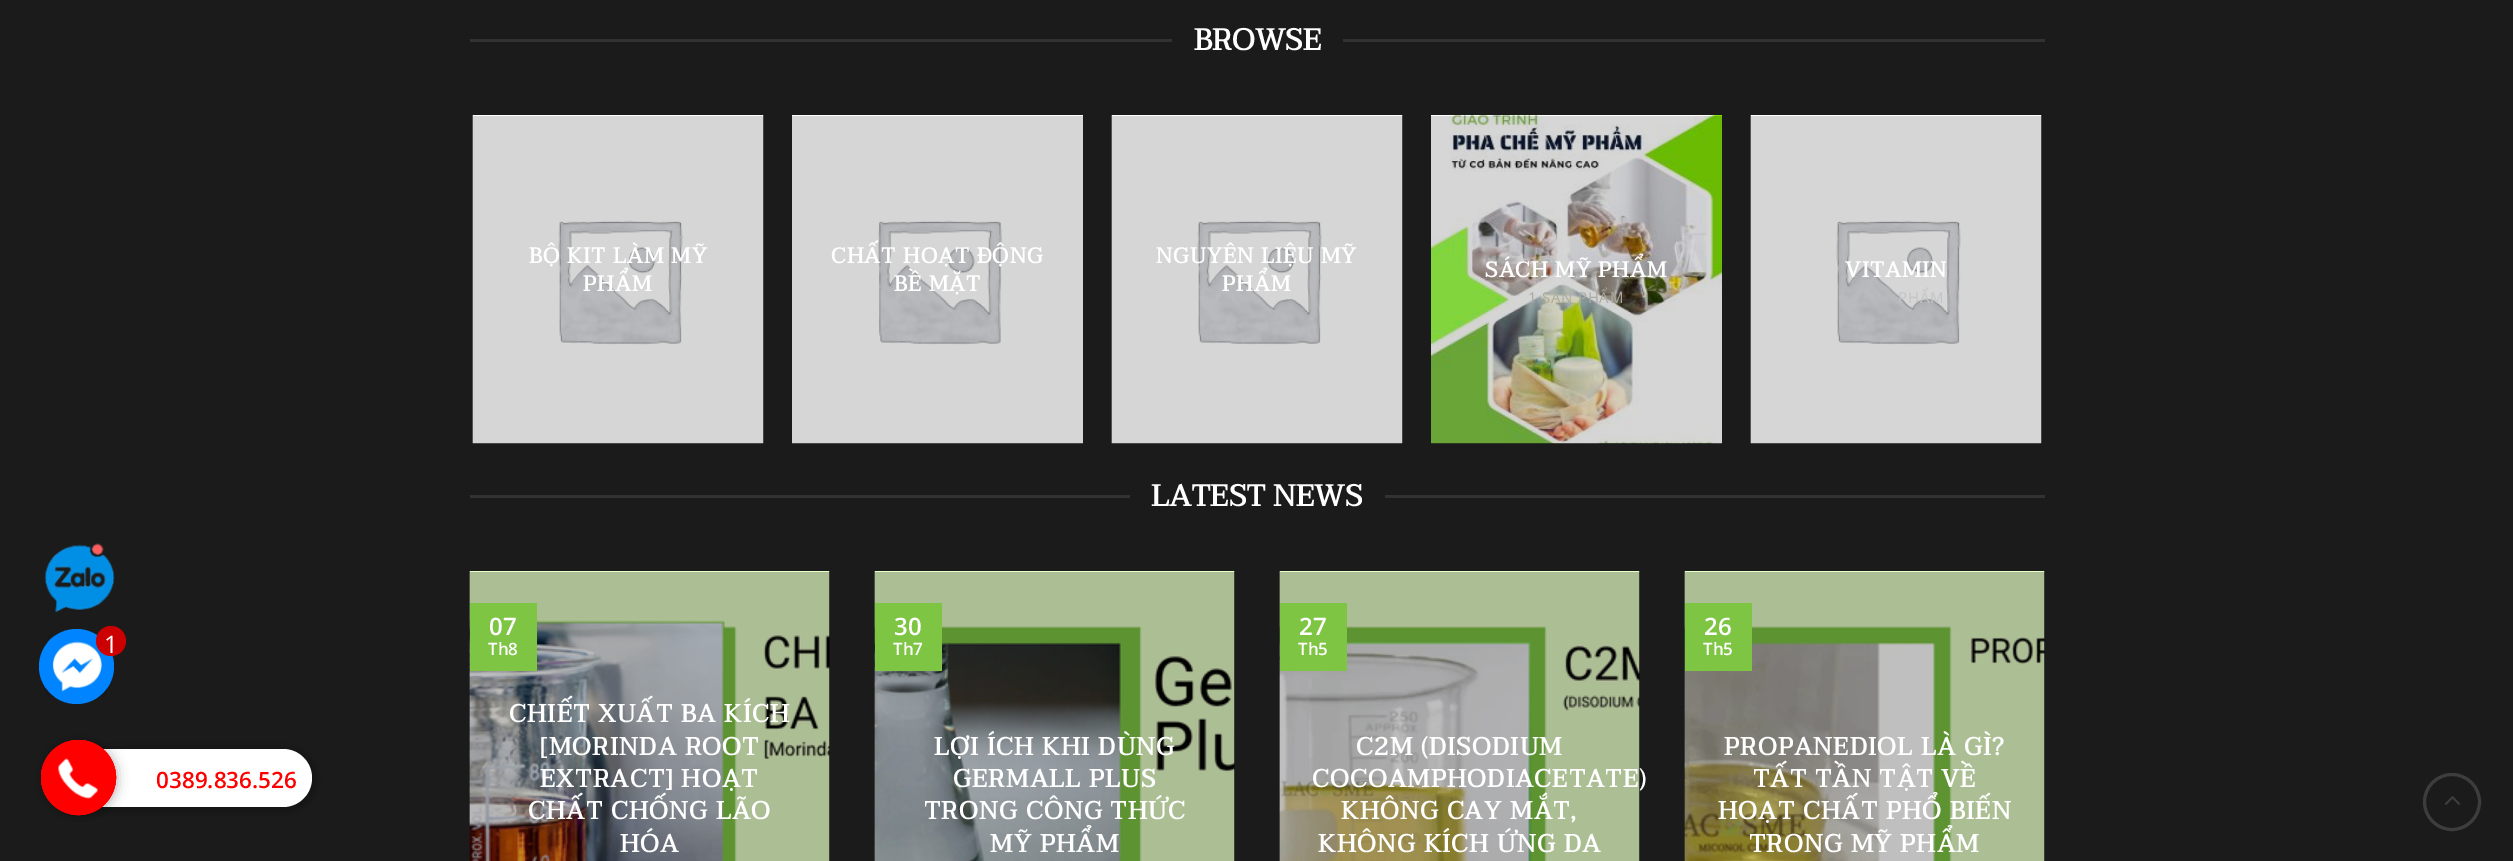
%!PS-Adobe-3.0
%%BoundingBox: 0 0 2513 861
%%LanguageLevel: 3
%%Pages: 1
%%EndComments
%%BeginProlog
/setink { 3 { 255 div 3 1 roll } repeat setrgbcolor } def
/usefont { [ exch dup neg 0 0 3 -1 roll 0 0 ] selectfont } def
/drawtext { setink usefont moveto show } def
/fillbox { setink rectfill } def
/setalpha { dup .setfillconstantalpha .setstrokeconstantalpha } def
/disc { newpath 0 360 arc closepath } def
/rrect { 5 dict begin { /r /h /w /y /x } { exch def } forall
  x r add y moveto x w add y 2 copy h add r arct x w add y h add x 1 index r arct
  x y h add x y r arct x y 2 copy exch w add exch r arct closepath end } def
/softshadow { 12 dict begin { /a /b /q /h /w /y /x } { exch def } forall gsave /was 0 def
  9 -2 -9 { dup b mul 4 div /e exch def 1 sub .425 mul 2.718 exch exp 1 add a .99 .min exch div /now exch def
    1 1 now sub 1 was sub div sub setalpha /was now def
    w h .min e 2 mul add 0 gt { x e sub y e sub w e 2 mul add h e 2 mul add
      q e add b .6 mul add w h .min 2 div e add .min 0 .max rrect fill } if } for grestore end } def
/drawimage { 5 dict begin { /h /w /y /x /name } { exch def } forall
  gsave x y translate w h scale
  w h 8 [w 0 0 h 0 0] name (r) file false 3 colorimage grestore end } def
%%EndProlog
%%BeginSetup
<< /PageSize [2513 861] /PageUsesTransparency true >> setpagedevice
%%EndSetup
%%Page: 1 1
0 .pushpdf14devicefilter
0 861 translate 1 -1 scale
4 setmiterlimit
0 0 2513 861 27 27 27 fillbox
(assets/img1.rgb) 44 543 71 69 drawimage
1751 116 291 328 23 23 23 fillbox
1431 443 291 1 23 23 23 fillbox
1112 116 291 328 23 23 23 fillbox
792 443 291 1 23 23 23 fillbox
473 116 291 328 23 23 23 fillbox
470 39 702 3 50 50 50 fillbox
(BROWSE) 1194 50 /Taviraj-Bold 30 255 255 255 drawtext
1343 39 702 3 50 50 50 fillbox
(assets/img2.rgb) 472 115 292 329 drawimage
/Taviraj-Bold 21.5 usefont
255 255 255 setink
529 263 moveto 1.1 0 (BỘ KIT LÀM MỸ) ashow
583 291 moveto 1.1 0 (PHẨM) ashow
(assets/img3.rgb) 792 115 291 329 drawimage
831 263 moveto 1.1 0 (CHẤT HOẠT ĐỘNG) ashow
894 291 moveto 1.1 0 (BỀ MẶT) ashow
(assets/img2.rgb) 1111 115 292 329 drawimage
1156 263 moveto 1.1 0 (NGUYÊN LIỆU MỸ) ashow
1222 291 moveto 1.1 0 (PHẨM) ashow
(assets/img4.rgb) 1431 115 291 329 drawimage
1485 277 moveto 1.1 0 (SÁCH MỸ PHẨM) ashow
/OpenSans-Regular 15 usefont
170 170 160 setink
1528 303 moveto 0.75 0 (1 SẢN PHẨM) ashow
(assets/img2.rgb) 1750 115 292 329 drawimage
/Taviraj-Bold 21.5 usefont
255 255 255 setink
1845 277 moveto 1.1 0 (VITAMIN) ashow
/OpenSans-Regular 15 usefont
195 196 198 setink
1898 303 moveto 0.75 0 (PHẨM) ashow
470 495 660 3 50 50 50 fillbox
(LATEST NEWS) 1151 506 /Taviraj-Bold 30 255 255 255 drawtext
1385 495 660 3 50 50 50 fillbox
(assets/img5.rgb) 469 571 361 290 drawimage
0.25 setalpha
470 572 360 289 0 0 0 fillbox
1 setalpha
470 603 67 68 126 197 68 fillbox
(07) 489 635 /OpenSans-SemiBold 24 255 255 255 drawtext
(Th8) 488 655 /OpenSans-SemiBold 17 255 255 255 drawtext
/Taviraj-Bold 24.8 usefont
509 722 moveto 1.25 0 (CHIẾT XUẤT BA KÍCH) ashow
540 755 moveto 1.25 0 ([MORINDA ROOT) ashow
540 787 moveto 1.25 0 (EXTRACT] HOẠT) ashow
528 819 moveto 1.25 0 (CHẤT CHỐNG LÃO) ashow
620 852 moveto 1.25 0 (HÓA) ashow
(assets/img6.rgb) 874 571 361 290 drawimage
0.25 setalpha
875 572 360 289 0 0 0 fillbox
1 setalpha
875 603 67 68 126 197 68 fillbox
(30) 894 635 /OpenSans-SemiBold 24 255 255 255 drawtext
(Th7) 893 655 /OpenSans-SemiBold 17 255 255 255 drawtext
/Taviraj-Bold 24.8 usefont
934 755 moveto 1.25 0 (LỢI ÍCH KHI DÙNG) ashow
953 787 moveto 1.25 0 (GERMALL PLUS) ashow
924 819 moveto 1.25 0 (TRONG CÔNG THỨC) ashow
990 852 moveto 1.25 0 (MỸ PHẨM) ashow
(assets/img7.rgb) 1279 571 361 290 drawimage
0.25 setalpha
1280 572 360 289 0 0 0 fillbox
1 setalpha
1280 603 67 68 126 197 68 fillbox
(27) 1299 635 /OpenSans-SemiBold 24 255 255 255 drawtext
(Th5) 1298 655 /OpenSans-SemiBold 17 255 255 255 drawtext
/Taviraj-Bold 24.8 usefont
1356 755 moveto 1.25 0 (C2M \(DISODIUM) ashow
1312 787 moveto 1.25 0 (COCOAMPHODIACETATE\)) ashow
1341 819 moveto 1.25 0 (KHÔNG CAY MẮT,) ashow
1318 852 moveto 1.25 0 (KHÔNG KÍCH ỨNG DA) ashow
(assets/img8.rgb) 1684 571 361 290 drawimage
0.25 setalpha
1685 572 360 289 0 0 0 fillbox
1 setalpha
1685 603 67 68 126 197 68 fillbox
(26) 1704 635 /OpenSans-SemiBold 24 255 255 255 drawtext
(Th5) 1703 655 /OpenSans-SemiBold 17 255 255 255 drawtext
/Taviraj-Bold 24.8 usefont
1724 755 moveto 1.25 0 (PROPANEDIOL LÀ GÌ?) ashow
1753 787 moveto 1.25 0 (TẤT TẦN TẬT VỀ) ashow
1718 819 moveto 1.25 0 (HOẠT CHẤT PHỔ BIẾN) ashow
1749 852 moveto 1.25 0 (TRONG MỸ PHẨM) ashow
61 61 61 setink
3 setlinewidth
2452 802 27.5 disc stroke
(assets/img9.rgb) 2444 796 17 9 drawimage
0 132 255 setink
76.5 666.5 37.5 disc fill
(assets/img10.rgb) 46 635 61 62 drawimage
204 0 0 setink
111 641 15 disc fill
(1) 104 653 /OpenSans-Regular 24 255 255 255 drawtext
0 0 0 setink
50 750 264 59 29.5 6 0.4 softshadow
255 255 255 setink
48 749 264 58 29 rrect fill
0 0 0 setink
42 741 75 75 37.5 6 0.3 softshadow
255 0 0 setink
78.5 777.5 37.5 disc fill
(assets/img11.rgb) 58 758 40 41 drawimage
2 setlinewidth
78.5 777.5 36.5 disc stroke
78.5 777.5 36.5 disc stroke
(0389.836.526) 156 788 /OpenSans-SemiBold 22.5 255 0 0 drawtext
.poppdf14devicefilter showpage
%%EOF
